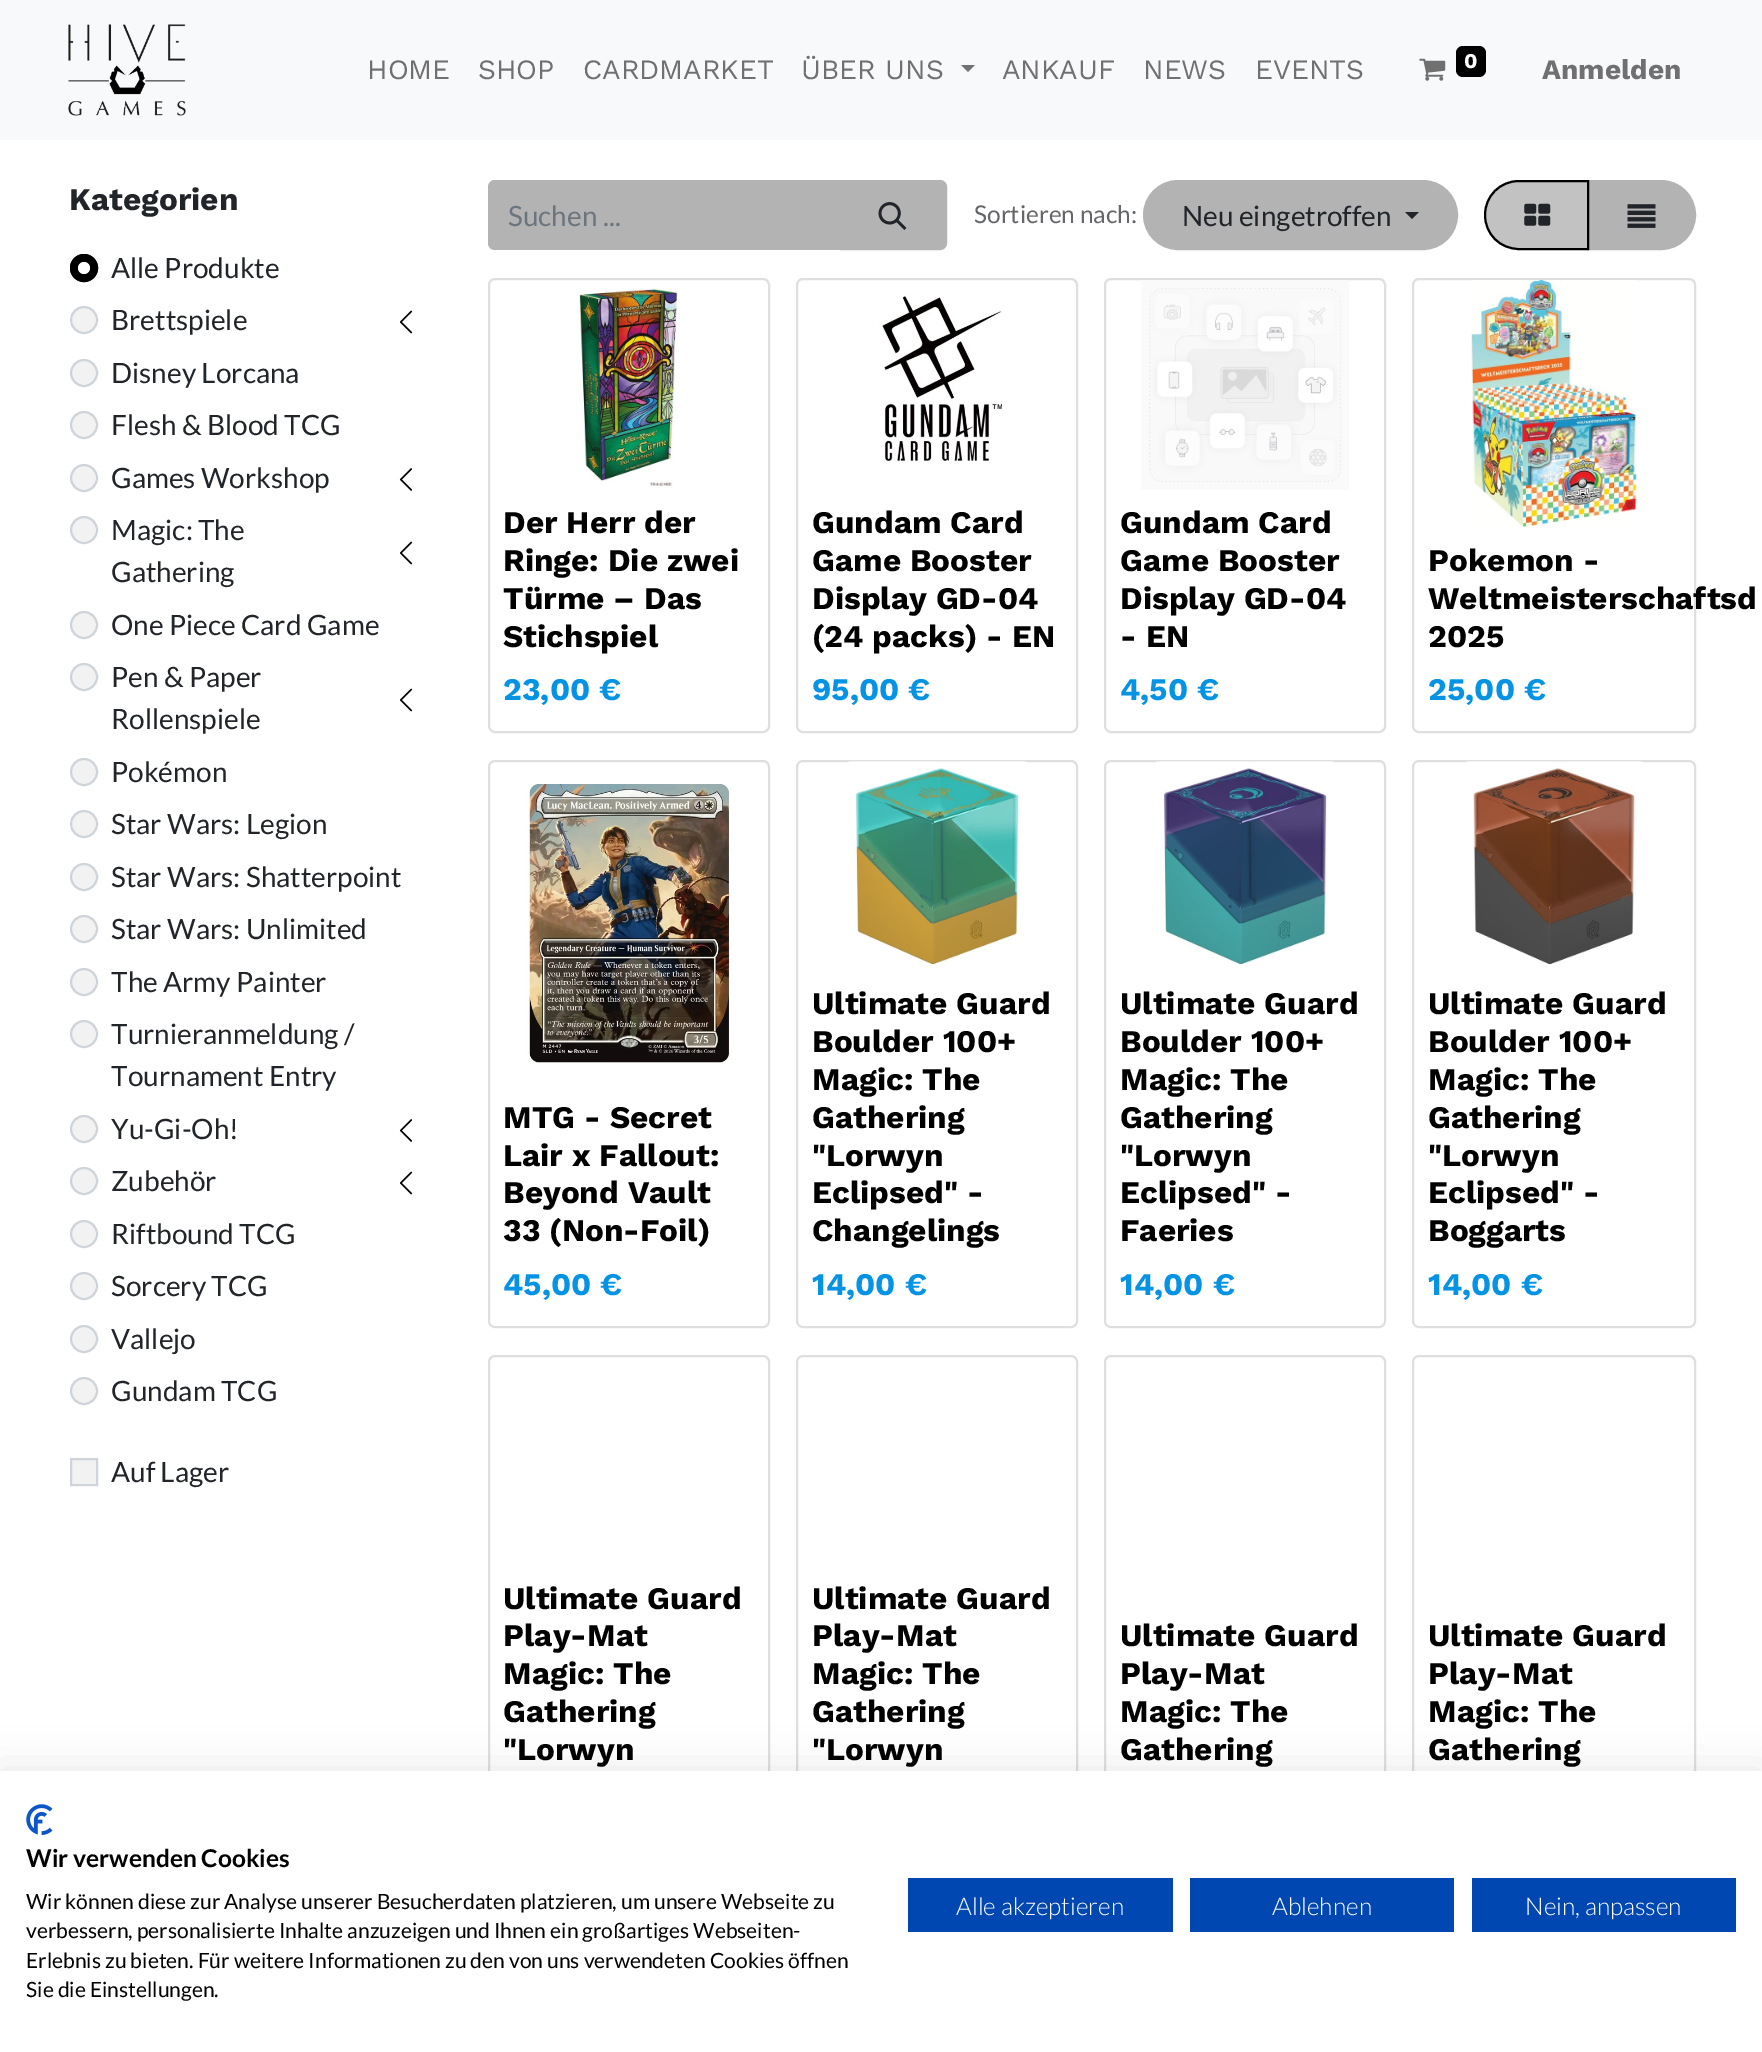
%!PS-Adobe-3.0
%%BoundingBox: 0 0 1762 2052
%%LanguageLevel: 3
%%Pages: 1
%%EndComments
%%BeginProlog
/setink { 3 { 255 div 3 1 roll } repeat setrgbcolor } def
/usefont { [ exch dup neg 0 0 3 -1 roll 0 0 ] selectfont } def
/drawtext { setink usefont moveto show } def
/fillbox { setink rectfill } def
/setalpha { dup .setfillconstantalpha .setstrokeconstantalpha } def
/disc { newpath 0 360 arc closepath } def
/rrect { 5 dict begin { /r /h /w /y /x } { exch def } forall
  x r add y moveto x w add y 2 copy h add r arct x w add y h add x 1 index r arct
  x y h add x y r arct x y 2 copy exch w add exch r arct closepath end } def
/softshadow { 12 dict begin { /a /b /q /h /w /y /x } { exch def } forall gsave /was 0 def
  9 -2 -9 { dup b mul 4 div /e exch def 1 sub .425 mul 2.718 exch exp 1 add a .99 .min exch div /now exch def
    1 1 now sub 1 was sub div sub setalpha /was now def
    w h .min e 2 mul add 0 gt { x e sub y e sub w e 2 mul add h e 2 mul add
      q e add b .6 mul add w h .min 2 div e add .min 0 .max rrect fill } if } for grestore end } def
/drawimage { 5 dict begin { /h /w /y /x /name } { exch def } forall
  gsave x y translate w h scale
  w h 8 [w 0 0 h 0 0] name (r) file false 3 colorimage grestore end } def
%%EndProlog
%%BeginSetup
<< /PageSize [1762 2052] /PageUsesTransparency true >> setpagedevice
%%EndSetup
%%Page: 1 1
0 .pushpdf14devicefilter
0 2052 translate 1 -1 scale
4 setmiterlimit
0 0 1762 2052 255 255 255 fillbox
0 0 1762 140 248 249 250 fillbox
(assets/img1.rgb) 68 24 118 92 drawimage
(HOME) 367 79 /WorkSans-Regular 28 112 112 113 drawtext
(SHOP) 478 79 /WorkSans-Regular 28 112 112 113 drawtext
(CARDMARKET) 583 79 /WorkSans-Regular 28 112 112 113 drawtext
(ÜBER UNS) 801 79 /WorkSans-Regular 28 112 112 113 drawtext
961 65 moveto 975 65 lineto 968 72 lineto closepath fill
(ANKAUF) 1002 79 /WorkSans-Regular 28 112 112 113 drawtext
(NEWS) 1143 79 /WorkSans-Regular 28 112 112 113 drawtext
(EVENTS) 1255 79 /WorkSans-Regular 28 112 112 113 drawtext
(assets/img2.rgb) 1419 58 27 23 drawimage
0 0 0 setink
1456 46 30 31 7 rrect fill
(0) 1464 68 /WorkSans-Bold 21 255 255 255 drawtext
(Anmelden) 1542 79 /WorkSans-Bold 28 112 112 113 drawtext
(Kategorien) 69 210 /WorkSans-Bold 31.5 33 37 41 drawtext
0 0 0 setink
84 268 14 disc fill
255 255 255 setink
84 268 6 disc fill
0 0 0 setink
2 setlinewidth
84 268 13 disc stroke
(Alle Produkte) 111 278 /Lato-Regular 28 33 37 41 drawtext
242 242 243 setink
84 320 13 disc gsave fill grestore
206 212 218 setink
stroke
(Brettspiele) 111 330 /Lato-Regular 28 33 37 41 drawtext
(assets/img3.rgb) 400 310 13 24 drawimage
242 242 243 setink
84 373 13 disc gsave fill grestore
206 212 218 setink
stroke
(Disney Lorcana) 111 383 /Lato-Regular 28 33 37 41 drawtext
242 242 243 setink
84 425 13 disc gsave fill grestore
206 212 218 setink
stroke
(Flesh & Blood TCG) 111 435 /Lato-Regular 28 33 37 41 drawtext
242 242 243 setink
84 478 13 disc gsave fill grestore
206 212 218 setink
stroke
(Games Workshop) 111 488 /Lato-Regular 28 33 37 41 drawtext
(assets/img4.rgb) 399 468 13 23 drawimage
242 242 243 setink
84 530 13 disc gsave fill grestore
206 212 218 setink
stroke
(Magic: The) 111 540 /Lato-Regular 28 33 37 41 drawtext
(Gathering) 111 582 /Lato-Regular 28 33 37 41 drawtext
(assets/img3.rgb) 400 541 13 24 drawimage
242 242 243 setink
84 625 13 disc gsave fill grestore
206 212 218 setink
stroke
(One Piece Card Game) 111 635 /Lato-Regular 28 33 37 41 drawtext
242 242 243 setink
84 677 13 disc gsave fill grestore
206 212 218 setink
stroke
(Pen & Paper) 111 687 /Lato-Regular 28 33 37 41 drawtext
(Rollenspiele) 111 729 /Lato-Regular 28 33 37 41 drawtext
(assets/img3.rgb) 400 688 13 24 drawimage
242 242 243 setink
84 772 13 disc gsave fill grestore
206 212 218 setink
stroke
(Pokémon) 111 782 /Lato-Regular 28 33 37 41 drawtext
242 242 243 setink
84 824 13 disc gsave fill grestore
206 212 218 setink
stroke
(Star Wars: Legion) 111 834 /Lato-Regular 28 33 37 41 drawtext
242 242 243 setink
84 877 13 disc gsave fill grestore
206 212 218 setink
stroke
(Star Wars: Shatterpoint) 111 887 /Lato-Regular 28 33 37 41 drawtext
242 242 243 setink
84 929 13 disc gsave fill grestore
206 212 218 setink
stroke
(Star Wars: Unlimited) 111 939 /Lato-Regular 28 33 37 41 drawtext
242 242 243 setink
84 982 13 disc gsave fill grestore
206 212 218 setink
stroke
(The Army Painter) 111 992 /Lato-Regular 28 33 37 41 drawtext
242 242 243 setink
84 1034 13 disc gsave fill grestore
206 212 218 setink
stroke
(Turnieranmeldung /) 111 1044 /Lato-Regular 28 33 37 41 drawtext
(Tournament Entry) 111 1086 /Lato-Regular 28 33 37 41 drawtext
242 242 243 setink
84 1129 13 disc gsave fill grestore
206 212 218 setink
stroke
(Yu-Gi-Oh!) 111 1139 /Lato-Regular 28 33 37 41 drawtext
(assets/img4.rgb) 399 1119 13 23 drawimage
242 242 243 setink
84 1181 13 disc gsave fill grestore
206 212 218 setink
stroke
(Zubehör) 111 1191 /Lato-Regular 28 33 37 41 drawtext
(assets/img3.rgb) 400 1171 13 24 drawimage
242 242 243 setink
84 1234 13 disc gsave fill grestore
206 212 218 setink
stroke
(Riftbound TCG) 111 1244 /Lato-Regular 28 33 37 41 drawtext
242 242 243 setink
84 1286 13 disc gsave fill grestore
206 212 218 setink
stroke
(Sorcery TCG) 111 1296 /Lato-Regular 28 33 37 41 drawtext
242 242 243 setink
84 1339 13 disc gsave fill grestore
206 212 218 setink
stroke
(Vallejo) 111 1349 /Lato-Regular 28 33 37 41 drawtext
242 242 243 setink
84 1391 13 disc gsave fill grestore
206 212 218 setink
stroke
(Gundam TCG) 111 1401 /Lato-Regular 28 33 37 41 drawtext
242 242 243 setink
71 1459 moveto 97 1459 lineto 97 1485 lineto 71 1485 lineto closepath gsave fill grestore
206 212 218 setink
stroke
(Auf Lager) 111 1482 /Lato-Regular 28 33 37 41 drawtext
179 179 179 setink
495 180 moveto 842 180 lineto 842 250 lineto 495 250 lineto 491 250 488 247 488 243 curveto 488 187 lineto 488 183 491 180 495 180 curveto closepath fill
(Suchen ...) 508 226 /Lato-Regular 28 108 117 125 drawtext
179 179 179 setink
841 181 moveto 940 181 lineto 943.5 181 946 183.5 946 187 curveto 946 243 lineto 946 246.5 943.5 249 940 249 curveto 841 249 lineto closepath gsave fill grestore
stroke
(assets/img5.rgb) 878 202 29 28 drawimage
(Sortieren nach:) 974 223 /Lato-Regular 24.5 100 102 105 drawtext
179 179 179 setink
1144 181 313 68 34 rrect gsave fill grestore
stroke
(Neu eingetroffen) 1182 226 /Lato-Regular 28 33 37 41 drawtext
1405 212 moveto 1419 212 lineto 1412 219 lineto closepath fill
179 179 179 setink
1588 181 moveto 1661 181 lineto 1680 181 1695 196 1695 215 curveto 1695 234 1680 249 1661 249 curveto 1588 249 lineto closepath gsave fill grestore
stroke
194 194 194 setink
1519 181 moveto 1588 181 lineto 1588 249 lineto 1519 249 lineto 1500 249 1485 234 1485 215 curveto 1485 196 1500 181 1519 181 curveto closepath gsave fill grestore
0 0 0 setink
stroke
(assets/img6.rgb) 1524 203 27 23 drawimage
(assets/img7.rgb) 1627 204 29 24 drawimage
223 223 223 setink
489 279 280 453 6 rrect stroke
(assets/img8.rgb) 579 288 101 198 drawimage
(Der Herr der) 503 533 /WorkSans-Bold 31.5 0 0 0 drawtext
(Ringe: Die zwei) 503 571 /WorkSans-Bold 31.5 0 0 0 drawtext
(Türme – Das) 503 609 /WorkSans-Bold 31.5 0 0 0 drawtext
(Stichspiel) 503 647 /WorkSans-Bold 31.5 0 0 0 drawtext
(23,00 €) 503 700 /WorkSans-Bold 31.5 6 147 227 drawtext
223 223 223 setink
797 279 280 453 6 rrect stroke
(assets/img9.rgb) 879 294 123 167 drawimage
(Gundam Card) 812 533 /WorkSans-Bold 31.5 0 0 0 drawtext
(Game Booster) 812 571 /WorkSans-Bold 31.5 0 0 0 drawtext
(Display GD-04) 812 609 /WorkSans-Bold 31.5 0 0 0 drawtext
(\(24 packs\) - EN) 812 647 /WorkSans-Bold 31.5 0 0 0 drawtext
(95,00 €) 812 700 /WorkSans-Bold 31.5 6 147 227 drawtext
223 223 223 setink
1105 279 280 453 6 rrect stroke
(assets/img10.rgb) 1141 280 208 210 drawimage
(Gundam Card) 1120 533 /WorkSans-Bold 31.5 0 0 0 drawtext
(Game Booster) 1120 571 /WorkSans-Bold 31.5 0 0 0 drawtext
(Display GD-04) 1120 609 /WorkSans-Bold 31.5 0 0 0 drawtext
(- EN) 1120 647 /WorkSans-Bold 31.5 0 0 0 drawtext
(4,50 €) 1120 700 /WorkSans-Bold 31.5 6 147 227 drawtext
223 223 223 setink
1413 279 282 453 6 rrect stroke
(assets/img11.rgb) 1471 280 166 247 drawimage
(Pokemon -) 1428 571 /WorkSans-Bold 31.5 0 0 0 drawtext
(Weltmeisterschaftsd) 1428 609 /WorkSans-Bold 31.5 0 0 0 drawtext
(2025) 1428 647 /WorkSans-Bold 31.5 0 0 0 drawtext
(25,00 €) 1428 700 /WorkSans-Bold 31.5 6 147 227 drawtext
223 223 223 setink
489 761 280 566 6 rrect stroke
(assets/img12.rgb) 526 784 205 279 drawimage
(MTG - Secret) 503 1128 /WorkSans-Bold 31.5 0 0 0 drawtext
(Lair x Fallout:) 503 1166 /WorkSans-Bold 31.5 0 0 0 drawtext
(Beyond Vault) 503 1203 /WorkSans-Bold 31.5 0 0 0 drawtext
(33 \(Non-Foil\)) 503 1241 /WorkSans-Bold 31.5 0 0 0 drawtext
(45,00 €) 503 1295 /WorkSans-Bold 31.5 6 147 227 drawtext
223 223 223 setink
797 761 280 566 6 rrect stroke
(assets/img13.rgb) 848 761 178 205 drawimage
(Ultimate Guard) 812 1014 /WorkSans-Bold 31.5 0 0 0 drawtext
(Boulder 100+) 812 1052 /WorkSans-Bold 31.5 0 0 0 drawtext
(Magic: The) 812 1090 /WorkSans-Bold 31.5 0 0 0 drawtext
(Gathering) 812 1128 /WorkSans-Bold 31.5 0 0 0 drawtext
("Lorwyn) 812 1166 /WorkSans-Bold 31.5 0 0 0 drawtext
(Eclipsed" -) 812 1203 /WorkSans-Bold 31.5 0 0 0 drawtext
(Changelings) 812 1241 /WorkSans-Bold 31.5 0 0 0 drawtext
(14,00 €) 812 1295 /WorkSans-Bold 31.5 6 147 227 drawtext
223 223 223 setink
1105 761 280 566 6 rrect stroke
(assets/img14.rgb) 1156 761 178 204 drawimage
(Ultimate Guard) 1120 1014 /WorkSans-Bold 31.5 0 0 0 drawtext
(Boulder 100+) 1120 1052 /WorkSans-Bold 31.5 0 0 0 drawtext
(Magic: The) 1120 1090 /WorkSans-Bold 31.5 0 0 0 drawtext
(Gathering) 1120 1128 /WorkSans-Bold 31.5 0 0 0 drawtext
("Lorwyn) 1120 1166 /WorkSans-Bold 31.5 0 0 0 drawtext
(Eclipsed" -) 1120 1203 /WorkSans-Bold 31.5 0 0 0 drawtext
(Faeries) 1120 1241 /WorkSans-Bold 31.5 0 0 0 drawtext
(14,00 €) 1120 1295 /WorkSans-Bold 31.5 6 147 227 drawtext
223 223 223 setink
1413 761 282 566 6 rrect stroke
(assets/img15.rgb) 1466 761 176 204 drawimage
(Ultimate Guard) 1428 1014 /WorkSans-Bold 31.5 0 0 0 drawtext
(Boulder 100+) 1428 1052 /WorkSans-Bold 31.5 0 0 0 drawtext
(Magic: The) 1428 1090 /WorkSans-Bold 31.5 0 0 0 drawtext
(Gathering) 1428 1128 /WorkSans-Bold 31.5 0 0 0 drawtext
("Lorwyn) 1428 1166 /WorkSans-Bold 31.5 0 0 0 drawtext
(Eclipsed" -) 1428 1203 /WorkSans-Bold 31.5 0 0 0 drawtext
(Boggarts) 1428 1241 /WorkSans-Bold 31.5 0 0 0 drawtext
(14,00 €) 1428 1295 /WorkSans-Bold 31.5 6 147 227 drawtext
223 223 223 setink
489 1356 280 603 6 rrect stroke
(Ultimate Guard) 503 1609 /WorkSans-Bold 31.5 0 0 0 drawtext
(Play-Mat) 503 1646 /WorkSans-Bold 31.5 0 0 0 drawtext
(Magic: The) 503 1684 /WorkSans-Bold 31.5 0 0 0 drawtext
(Gathering) 503 1722 /WorkSans-Bold 31.5 0 0 0 drawtext
("Lorwyn) 503 1760 /WorkSans-Bold 31.5 0 0 0 drawtext
223 223 223 setink
797 1356 280 603 6 rrect stroke
(Ultimate Guard) 812 1609 /WorkSans-Bold 31.5 0 0 0 drawtext
(Play-Mat) 812 1646 /WorkSans-Bold 31.5 0 0 0 drawtext
(Magic: The) 812 1684 /WorkSans-Bold 31.5 0 0 0 drawtext
(Gathering) 812 1722 /WorkSans-Bold 31.5 0 0 0 drawtext
("Lorwyn) 812 1760 /WorkSans-Bold 31.5 0 0 0 drawtext
223 223 223 setink
1105 1356 280 603 6 rrect stroke
(Ultimate Guard) 1120 1646 /WorkSans-Bold 31.5 0 0 0 drawtext
(Play-Mat) 1120 1684 /WorkSans-Bold 31.5 0 0 0 drawtext
(Magic: The) 1120 1722 /WorkSans-Bold 31.5 0 0 0 drawtext
(Gathering) 1120 1760 /WorkSans-Bold 31.5 0 0 0 drawtext
223 223 223 setink
1413 1356 282 603 6 rrect stroke
(Ultimate Guard) 1428 1646 /WorkSans-Bold 31.5 0 0 0 drawtext
(Play-Mat) 1428 1684 /WorkSans-Bold 31.5 0 0 0 drawtext
(Magic: The) 1428 1722 /WorkSans-Bold 31.5 0 0 0 drawtext
(Gathering) 1428 1760 /WorkSans-Bold 31.5 0 0 0 drawtext
0 1771 1762 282 0 21 0.1 softshadow
0 1771 1762 281 255 255 255 fillbox
(assets/img16.rgb) 26 1804 27 31 drawimage
(Wir verwenden Cookies) 26 1867 /Lato-Bold 24.5 0 0 0 drawtext
(Wir können diese zur Analyse unserer Besucherdaten platzieren, um unsere Webseite zu) 26 1909 /Lato-Regular 21 0 0 0 drawtext
(verbessern, personalisierte Inhalte anzuzeigen und Ihnen ein großartiges Webseiten-) 26 1938 /Lato-Regular 21 0 0 0 drawtext
(Erlebnis zu bieten. Für weitere Informationen zu den von uns verwendeten Cookies öffnen) 26 1968 /Lato-Regular 21 0 0 0 drawtext
(Sie die Einstellungen.) 26 1997 /Lato-Regular 21 0 0 0 drawtext
908 1878 265 54 0 71 178 fillbox
(Alle akzeptieren) 956 1915 /Lato-Light 24.5 255 255 255 drawtext
1190 1878 264 54 0 71 178 fillbox
(Ablehnen) 1272 1915 /Lato-Light 24.5 255 255 255 drawtext
1472 1878 264 54 0 71 178 fillbox
(Nein, anpassen) 1525 1915 /Lato-Light 24.5 255 255 255 drawtext
.poppdf14devicefilter showpage
%%EOF
